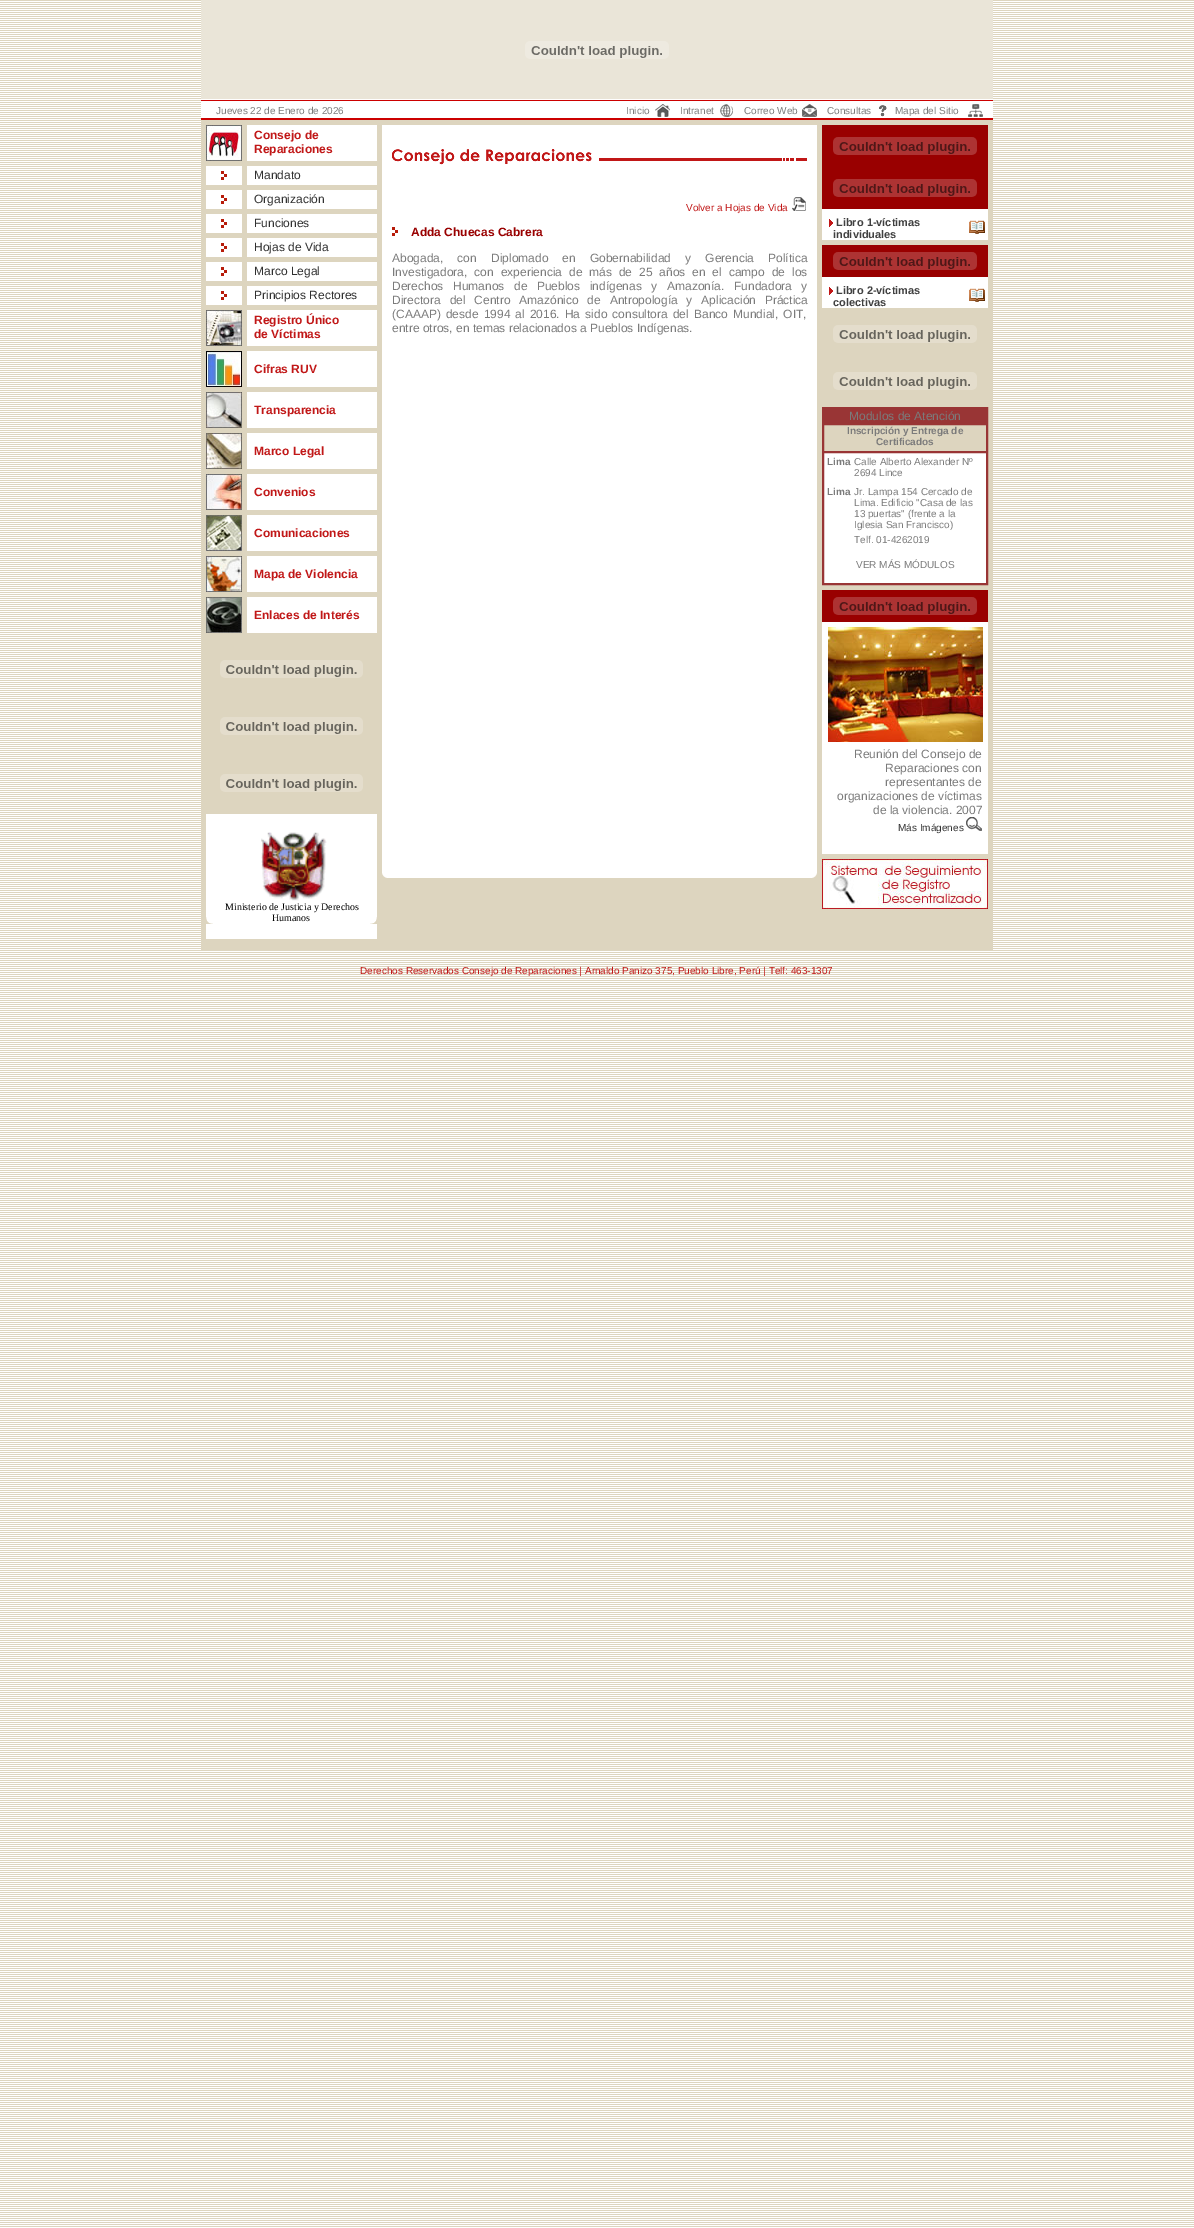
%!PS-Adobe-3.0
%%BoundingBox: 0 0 1194 2228
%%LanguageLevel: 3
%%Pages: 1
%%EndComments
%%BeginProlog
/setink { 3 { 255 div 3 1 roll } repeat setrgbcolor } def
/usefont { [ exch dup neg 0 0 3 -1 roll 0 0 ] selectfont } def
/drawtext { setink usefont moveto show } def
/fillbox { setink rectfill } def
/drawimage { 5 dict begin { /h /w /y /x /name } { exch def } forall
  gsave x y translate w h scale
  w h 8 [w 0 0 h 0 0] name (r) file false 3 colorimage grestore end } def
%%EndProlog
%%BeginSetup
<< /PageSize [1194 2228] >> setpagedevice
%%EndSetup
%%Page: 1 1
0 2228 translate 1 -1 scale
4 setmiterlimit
0 0 1194 2228 221 213 191 fillbox
(assets/img1.rgb) 0 1 1194 2227 drawimage
(assets/img2.rgb) 201 0 792 120 drawimage
(assets/img3.rgb) 525 41 144 18 drawimage
(Jueves 22 de Enero de 2026) 216 114 /LiberationSans-Regular 10 123 123 123 drawtext
(Inicio) 626 114 /LiberationSans-Regular 10 123 123 123 drawtext
(assets/img4.rgb) 655 104 15 13 drawimage
(Intranet) 680 114 /LiberationSans-Regular 10 123 123 123 drawtext
(assets/img5.rgb) 720 104 13 13 drawimage
(Correo Web) 744 114 /LiberationSans-Regular 10 123 123 123 drawtext
(assets/img6.rgb) 802 104 15 13 drawimage
(Consultas) 827 114 /LiberationSans-Regular 10 123 123 123 drawtext
(assets/img7.rgb) 879 105 8 12 drawimage
(Mapa del Sitio) 895 114 /LiberationSans-Regular 10 123 123 123 drawtext
(assets/img8.rgb) 968 104 15 13 drawimage
201 121 792 829 221 213 191 fillbox
(assets/img9.rgb) 206 125 36 36 drawimage
247 125 130 36 255 255 255 fillbox
(Consejo de) 254 139 /LiberationSans-Bold 12 193 23 23 drawtext
(Reparaciones) 254 153 /LiberationSans-Bold 12 193 23 23 drawtext
206 166 36 19 255 255 255 fillbox
(assets/img10.rgb) 221 171 6 9 drawimage
247 166 130 19 255 255 255 fillbox
(Mandato) 254 179 /LiberationSans-Regular 12 48 48 48 drawtext
206 190 36 19 255 255 255 fillbox
(assets/img10.rgb) 221 195 6 9 drawimage
247 190 130 19 255 255 255 fillbox
(Organización) 254 203 /LiberationSans-Regular 12 48 48 48 drawtext
206 214 36 19 255 255 255 fillbox
(assets/img10.rgb) 221 219 6 9 drawimage
247 214 130 19 255 255 255 fillbox
(Funciones) 254 227 /LiberationSans-Regular 12 48 48 48 drawtext
206 238 36 19 255 255 255 fillbox
(assets/img10.rgb) 221 243 6 9 drawimage
247 238 130 19 255 255 255 fillbox
(Hojas de Vida) 254 251 /LiberationSans-Regular 12 48 48 48 drawtext
206 262 36 19 255 255 255 fillbox
(assets/img10.rgb) 221 267 6 9 drawimage
247 262 130 19 255 255 255 fillbox
(Marco Legal) 254 275 /LiberationSans-Regular 12 48 48 48 drawtext
206 286 36 19 255 255 255 fillbox
(assets/img10.rgb) 221 291 6 9 drawimage
247 286 130 19 255 255 255 fillbox
(Principios Rectores) 254 299 /LiberationSans-Regular 12 48 48 48 drawtext
(assets/img11.rgb) 206 310 36 36 drawimage
247 310 130 36 255 255 255 fillbox
(Registro Único) 254 324 /LiberationSans-Bold 12 193 23 23 drawtext
(de Víctimas) 254 338 /LiberationSans-Bold 12 193 23 23 drawtext
(assets/img12.rgb) 206 351 36 36 drawimage
247 351 130 36 255 255 255 fillbox
(Cifras RUV) 254 373 /LiberationSans-Bold 12 193 23 23 drawtext
(assets/img13.rgb) 206 392 36 36 drawimage
247 392 130 36 255 255 255 fillbox
(Transparencia) 254 414 /LiberationSans-Bold 12 193 23 23 drawtext
(assets/img14.rgb) 206 433 36 36 drawimage
247 433 130 36 255 255 255 fillbox
(Marco Legal) 254 455 /LiberationSans-Bold 12 193 23 23 drawtext
(assets/img15.rgb) 206 474 36 36 drawimage
247 474 130 36 255 255 255 fillbox
(Convenios) 254 496 /LiberationSans-Bold 12 193 23 23 drawtext
(assets/img16.rgb) 206 515 36 36 drawimage
247 515 130 36 255 255 255 fillbox
(Comunicaciones) 254 537 /LiberationSans-Bold 12 193 23 23 drawtext
(assets/img17.rgb) 206 556 36 36 drawimage
247 556 130 36 255 255 255 fillbox
(Mapa de Violencia) 254 578 /LiberationSans-Bold 12 193 23 23 drawtext
(assets/img18.rgb) 206 597 36 36 drawimage
247 597 130 36 255 255 255 fillbox
(Enlaces de Interés) 254 619 /LiberationSans-Bold 12 193 23 23 drawtext
(assets/img19.rgb) 220 660 143 18 drawimage
(assets/img19.rgb) 220 717 143 18 drawimage
(assets/img19.rgb) 220 774 143 18 drawimage
(assets/img20.rgb) 206 814 171 125 drawimage
(assets/img21.rgb) 261 832 66 69 drawimage
(Ministerio de Justicia y Derechos) 225 910 /LiberationSerif-Regular 10 0 0 0 drawtext
(Humanos) 272 921 /LiberationSerif-Regular 10 0 0 0 drawtext
382 125 435 748 255 255 255 fillbox
(assets/img22.rgb) 392 149 415 16 drawimage
(Volver a Hojas de Vida) 686 211 /LiberationSans-Regular 10 193 23 23 drawtext
(assets/img23.rgb) 792 197 14 14 drawimage
(assets/img10.rgb) 392 227 6 9 drawimage
(Adda Chuecas Cabrera) 411 236 /LiberationSans-Bold 12 153 0 0 drawtext
/LiberationSans-Regular 12 usefont
123 123 123 setink
392 262 moveto 10.75 0 32 (Abogada, con Diplomado en Gobernabilidad y Gerencia Política) widthshow
392 276 moveto 3.6 0 32 (Investigadora, con experiencia de más de 25 años en el campo de los) widthshow
392 290 moveto 6.25 0 32 (Derechos Humanos de Pueblos indígenas y Amazonía. Fundadora y) widthshow
392 304 moveto 5.5 0 32 (Directora del Centro Amazónico de Antropología y Aplicación Práctica) widthshow
392 318 moveto 1.75 0 32 (\(CAAAP\) desde 1994 al 2016. Ha sido consultora del Banco Mundial, OIT,) widthshow
(entre otros, en temas relacionados a Pueblos Indígenas.) 392 332 /LiberationSans-Regular 12 123 123 123 drawtext
(assets/img24.rgb) 382 873 435 5 drawimage
822 125 166 84 153 0 0 fillbox
(assets/img25.rgb) 833 137 144 18 drawimage
822 209 166 31 255 255 255 fillbox
(assets/img25.rgb) 833 179 144 18 drawimage
(assets/img26.rgb) 829 219 4 8 drawimage
(Libro 1-víctimas) 836 226 /LiberationSans-Bold 11 64 64 64 drawtext
(assets/img27.rgb) 969 220 16 14 drawimage
(individuales) 833 238 /LiberationSans-Bold 11 64 64 64 drawtext
822 277 166 31 255 255 255 fillbox
822 245 166 32 153 0 0 fillbox
(assets/img28.rgb) 833 252 144 18 drawimage
(assets/img26.rgb) 829 287 4 8 drawimage
(Libro 2-víctimas) 836 294 /LiberationSans-Bold 11 64 64 64 drawtext
(assets/img27.rgb) 969 288 16 14 drawimage
(colectivas) 833 306 /LiberationSans-Bold 11 64 64 64 drawtext
(assets/img29.rgb) 833 325 144 18 drawimage
(assets/img29.rgb) 833 372 144 18 drawimage
153 53 53 setink
822.5 407.5 165 177 rectstroke
823 408 164 16 153 53 53 fillbox
(Modulos de Atención) 849 420 /LiberationSans-Regular 12 123 123 123 drawtext
153 53 53 setink
823.5 424.5 163 27 rectstroke
(Inscripción y Entrega de) 847 434 /LiberationSans-Bold 10 123 123 123 drawtext
(Certificados) 876 445 /LiberationSans-Bold 10 123 123 123 drawtext
255 255 255 setink
823.5 452.5 moveto 986.5 452.5 lineto 986.5 583.5 lineto 823.5 583.5 lineto closepath gsave fill grestore
153 53 53 setink
stroke
(Lima) 827 465 /LiberationSans-Bold 10 123 123 123 drawtext
(Calle Alberto Alexander Nº) 854 465 /LiberationSans-Regular 10 123 123 123 drawtext
(2694 Lince) 854 476 /LiberationSans-Regular 10 123 123 123 drawtext
(Lima) 827 495 /LiberationSans-Bold 10 123 123 123 drawtext
(Jr. Lampa 154 Cercado de) 854 495 /LiberationSans-Regular 10 123 123 123 drawtext
(Lima. Edificio "Casa de las) 854 506 /LiberationSans-Regular 10 123 123 123 drawtext
(13 puertas" \(frente a la) 854 517 /LiberationSans-Regular 10 123 123 123 drawtext
(Iglesia San Francisco\)) 854 528 /LiberationSans-Regular 10 123 123 123 drawtext
(Telf. 01-4262019) 854 543 /LiberationSans-Regular 10 123 123 123 drawtext
(VER MÁS MÓDULOS) 856 568 /LiberationSans-Regular 10 123 123 123 drawtext
822 622 166 232 255 255 255 fillbox
822 590 166 32 153 0 0 fillbox
(assets/img25.rgb) 833 597 144 18 drawimage
(assets/img30.rgb) 828 627 155 115 drawimage
(Reunión del Consejo de) 854 758 /LiberationSans-Regular 12 123 123 123 drawtext
(Reparaciones con) 885 772 /LiberationSans-Regular 12 123 123 123 drawtext
(representantes de) 885 786 /LiberationSans-Regular 12 123 123 123 drawtext
(organizaciones de víctimas) 837 800 /LiberationSans-Regular 12 123 123 123 drawtext
(de la violencia. 2007) 873 814 /LiberationSans-Regular 12 123 123 123 drawtext
(Más Imágenes) 898 831 /LiberationSans-Regular 10 48 48 48 drawtext
(assets/img31.rgb) 966 817 16 14 drawimage
(assets/img32.rgb) 822 859 166 50 drawimage
(Derechos Reservados Consejo de Reparaciones | Arnaldo Panizo 375, Pueblo Libre, Perú | Telf: 463-1307) 360 974 /LiberationSans-Regular 10 193 23 23 drawtext
showpage
%%EOF
